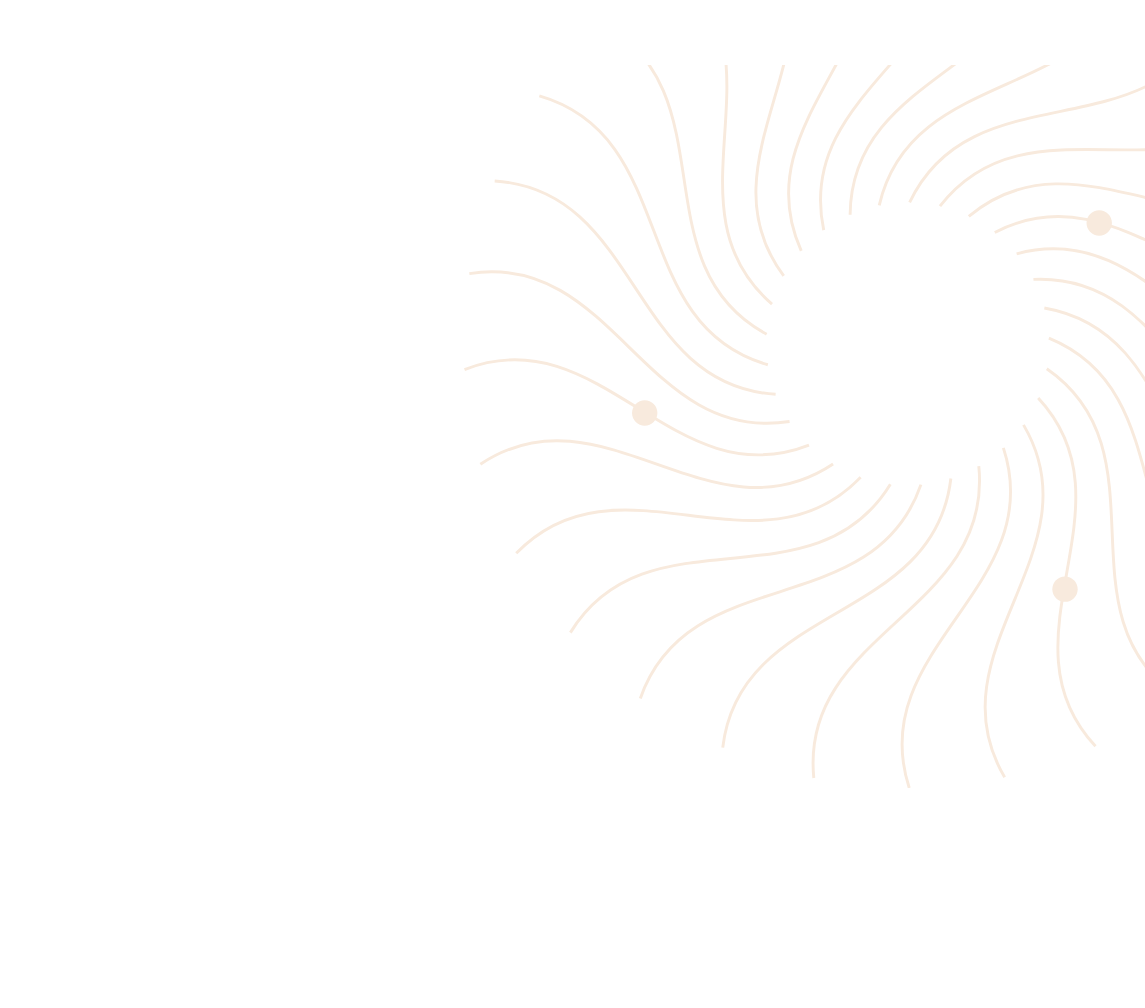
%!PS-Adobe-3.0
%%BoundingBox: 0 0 1145 1008
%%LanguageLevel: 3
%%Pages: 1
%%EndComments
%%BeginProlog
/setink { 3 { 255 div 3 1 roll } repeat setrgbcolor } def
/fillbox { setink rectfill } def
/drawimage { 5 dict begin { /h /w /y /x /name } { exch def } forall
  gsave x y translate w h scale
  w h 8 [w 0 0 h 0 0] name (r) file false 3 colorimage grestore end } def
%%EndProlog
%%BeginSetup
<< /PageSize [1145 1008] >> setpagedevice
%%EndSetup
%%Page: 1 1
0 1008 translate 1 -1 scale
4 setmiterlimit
0 0 1145 1008 255 255 255 fillbox
(assets/img1.rgb) 464 65 681 723 drawimage
showpage
%%EOF
